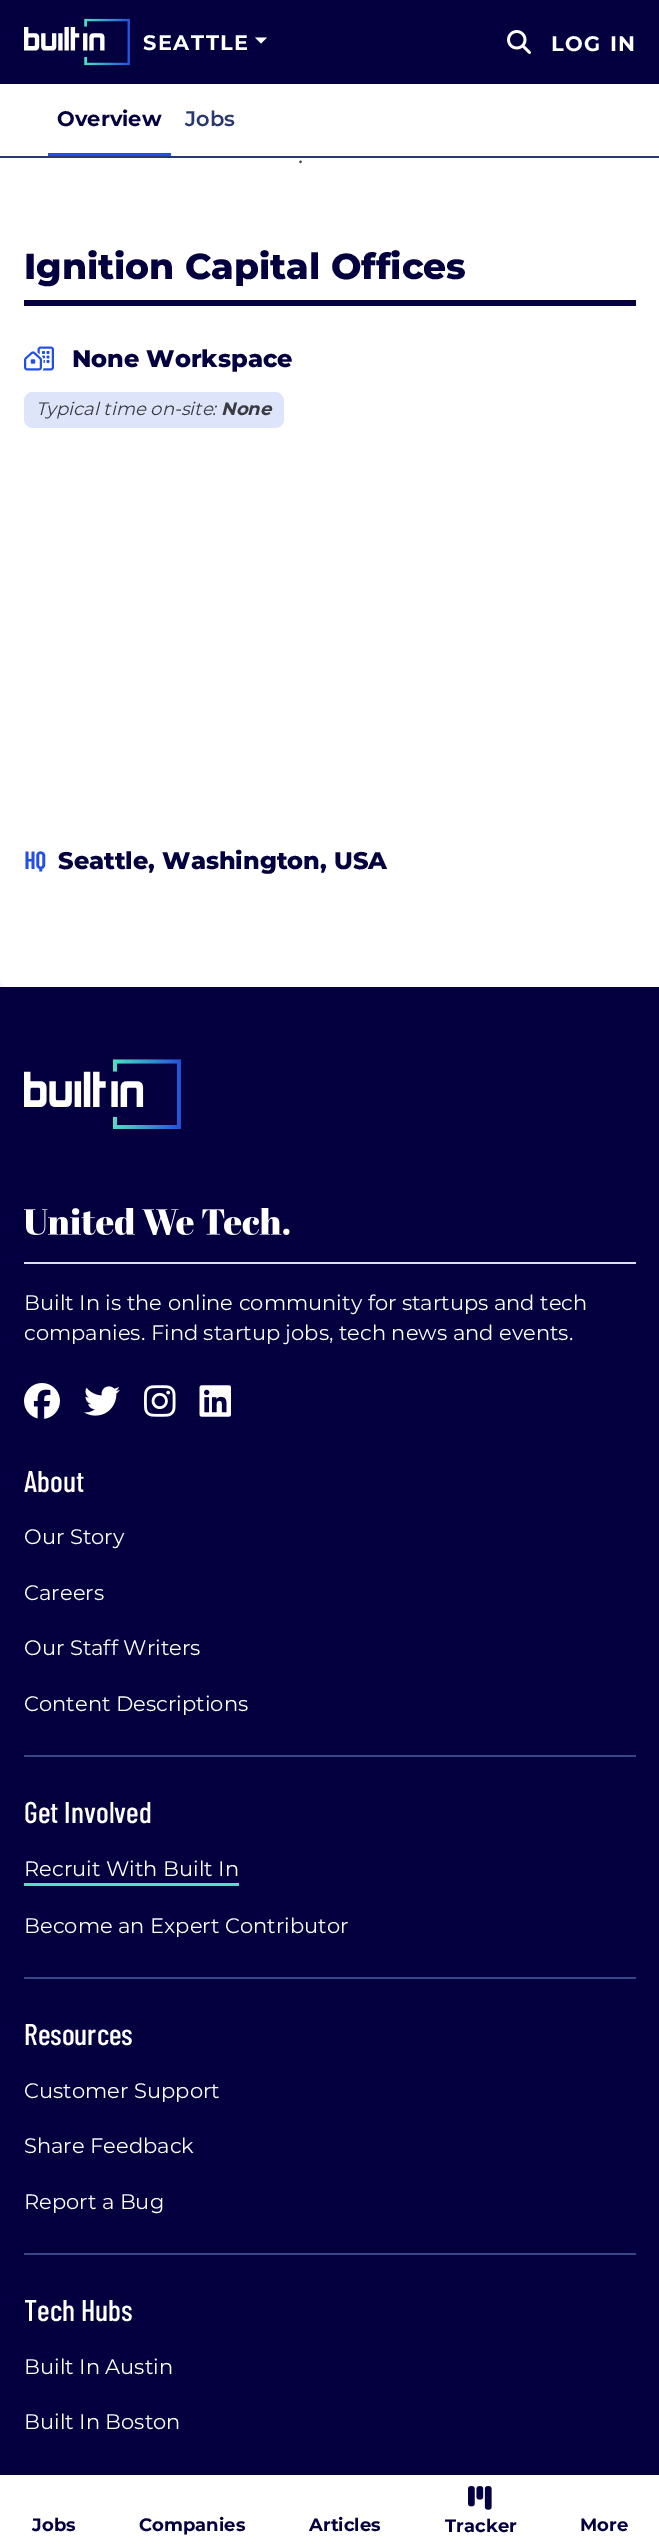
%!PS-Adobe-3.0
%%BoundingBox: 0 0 659 2546
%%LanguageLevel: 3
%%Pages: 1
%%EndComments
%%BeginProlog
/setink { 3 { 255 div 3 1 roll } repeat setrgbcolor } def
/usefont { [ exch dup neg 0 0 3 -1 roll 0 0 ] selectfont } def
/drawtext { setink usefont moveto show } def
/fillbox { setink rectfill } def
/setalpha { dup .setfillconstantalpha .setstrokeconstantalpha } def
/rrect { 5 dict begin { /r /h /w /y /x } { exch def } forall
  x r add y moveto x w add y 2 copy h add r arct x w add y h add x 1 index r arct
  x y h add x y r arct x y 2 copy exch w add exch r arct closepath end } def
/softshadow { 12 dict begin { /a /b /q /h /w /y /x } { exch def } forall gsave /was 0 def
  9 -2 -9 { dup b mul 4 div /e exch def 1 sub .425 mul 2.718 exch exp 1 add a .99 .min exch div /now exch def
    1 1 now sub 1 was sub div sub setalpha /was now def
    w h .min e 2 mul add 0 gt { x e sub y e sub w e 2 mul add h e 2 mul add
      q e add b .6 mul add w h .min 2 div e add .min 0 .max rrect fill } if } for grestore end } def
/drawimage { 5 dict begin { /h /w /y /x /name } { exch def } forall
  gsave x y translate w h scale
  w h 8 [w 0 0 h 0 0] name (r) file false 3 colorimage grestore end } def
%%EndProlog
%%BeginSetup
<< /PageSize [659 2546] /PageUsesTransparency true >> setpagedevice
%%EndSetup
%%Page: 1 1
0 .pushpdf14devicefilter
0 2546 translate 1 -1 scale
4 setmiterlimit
0 0 659 2546 255 255 255 fillbox
(assets/img3.rgb) 0 978 659 9 drawimage
0 -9 moveto 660 -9 lineto 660 978 lineto 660 983 656 987 651 987 curveto 9 987 lineto 4 987 0 983 0 978 curveto closepath fill
0 0 659 84 4 0 63 fillbox
(assets/img1.rgb) 24 18 106 48 drawimage
/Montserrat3-Thin 21 usefont
255 255 255 setink
143 50 moveto 1.5 0 (SEATTLE) ashow
255 37.5 moveto 267 37.5 lineto 261 43.5 lineto closepath fill
(assets/img2.rgb) 507 30 24 24 drawimage
551 51 moveto 1.5 0 (LOG IN) ashow
0 156 659 2 40 56 111 fillbox
48 153 123 3 36 79 231 fillbox
(Overview) 57 126 /Montserrat3-Thin 21 4 0 63 drawtext
(Jobs) 185 126 /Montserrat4-Thin 21 40 56 111 drawtext
(.) 298 163 /Montserrat-Thin 24 58 59 65 drawtext
24 300 612 6 4 0 63 fillbox
(Ignition Capital Offices) 24 279 /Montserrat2-Thin 36 4 0 63 drawtext
(assets/img4.rgb) 24 346 30 25 drawimage
(None Workspace) 72 367 /Montserrat2-Thin 24 4 0 63 drawtext
222 229 251 setink
24 392 260 36 9 rrect fill
(Typical time on-site:) 36 415 /Montserrat-ThinItalic 18 58 59 65 drawtext
(None) 221 415 /Montserrat2-ThinItalic 18 58 59 65 drawtext
(HQ) 24 869 /BarlowCondensed-Bold 24 36 79 231 drawtext
(Seattle, Washington, USA) 58 869 /Montserrat2-Thin 24 4 0 63 drawtext
0 987 659 1488 4 0 63 fillbox
(assets/img5.rgb) 24 1059 157 70 drawimage
24 1262 612 2 222 226 230 fillbox
(assets/img6.rgb) 24 1208 266 27 drawimage
(Built In is the online community for startups and tech) 24 1310 /Montserrat-Thin 21 255 255 255 drawtext
(companies. Find startup jobs, tech news and events.) 24 1340 /Montserrat-Thin 21 255 255 255 drawtext
(assets/img7.rgb) 24 1383 36 36 drawimage
(assets/img8.rgb) 84 1386 36 30 drawimage
(assets/img9.rgb) 144 1385 32 32 drawimage
(assets/img10.rgb) 199 1385 32 32 drawimage
(About) 24 1492 /BarlowCondensed-Medium 30 255 255 255 drawtext
(Our Story) 24 1544 /Montserrat-Thin 21 255 255 255 drawtext
(Careers) 24 1600 /Montserrat-Thin 21 255 255 255 drawtext
(Our Staff Writers) 24 1655 /Montserrat-Thin 21 255 255 255 drawtext
(Content Descriptions) 24 1711 /Montserrat-Thin 21 255 255 255 drawtext
24 1755 612 2 55 72 134 fillbox
(Get Involved) 24 1823 /BarlowCondensed-Medium 30 255 255 255 drawtext
24 1883 215 3 79 226 193 fillbox
(Recruit With Built In) 24 1876 /Montserrat-Thin 21 255 255 255 drawtext
(Become an Expert Contributor) 24 1933 /Montserrat-Thin 21 255 255 255 drawtext
24 1977 612 2 55 72 134 fillbox
(Resources) 24 2045 /BarlowCondensed-Medium 30 255 255 255 drawtext
(Customer Support) 24 2098 /Montserrat-Thin 21 255 255 255 drawtext
(Share Feedback) 24 2153 /Montserrat-Thin 21 255 255 255 drawtext
(Report a Bug) 24 2209 /Montserrat-Thin 21 255 255 255 drawtext
24 2253 612 2 55 72 134 fillbox
(Tech Hubs) 24 2321 /BarlowCondensed-Medium 30 255 255 255 drawtext
(Built In Austin) 24 2374 /Montserrat-Thin 21 255 255 255 drawtext
(Built In Boston) 24 2429 /Montserrat-Thin 21 255 255 255 drawtext
0 0 0 setink
0 2477 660 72 0 7.5 0.12 softshadow
0 2478 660 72 0 3 0.2 softshadow
0 2475 659 71 255 255 255 fillbox
(Jobs) 32 2531 /Montserrat3-Thin 18 4 0 63 drawtext
(Companies) 139 2531 /Montserrat3-Thin 18 4 0 63 drawtext
(Articles) 309 2531 /Montserrat3-Thin 18 4 0 63 drawtext
(assets/img11.rgb) 468 2486 24 24 drawimage
(Tracker) 445 2532 /Montserrat3-Thin 18 4 0 63 drawtext
(More) 580 2531 /Montserrat3-Thin 18 4 0 63 drawtext
.poppdf14devicefilter showpage
%%EOF
